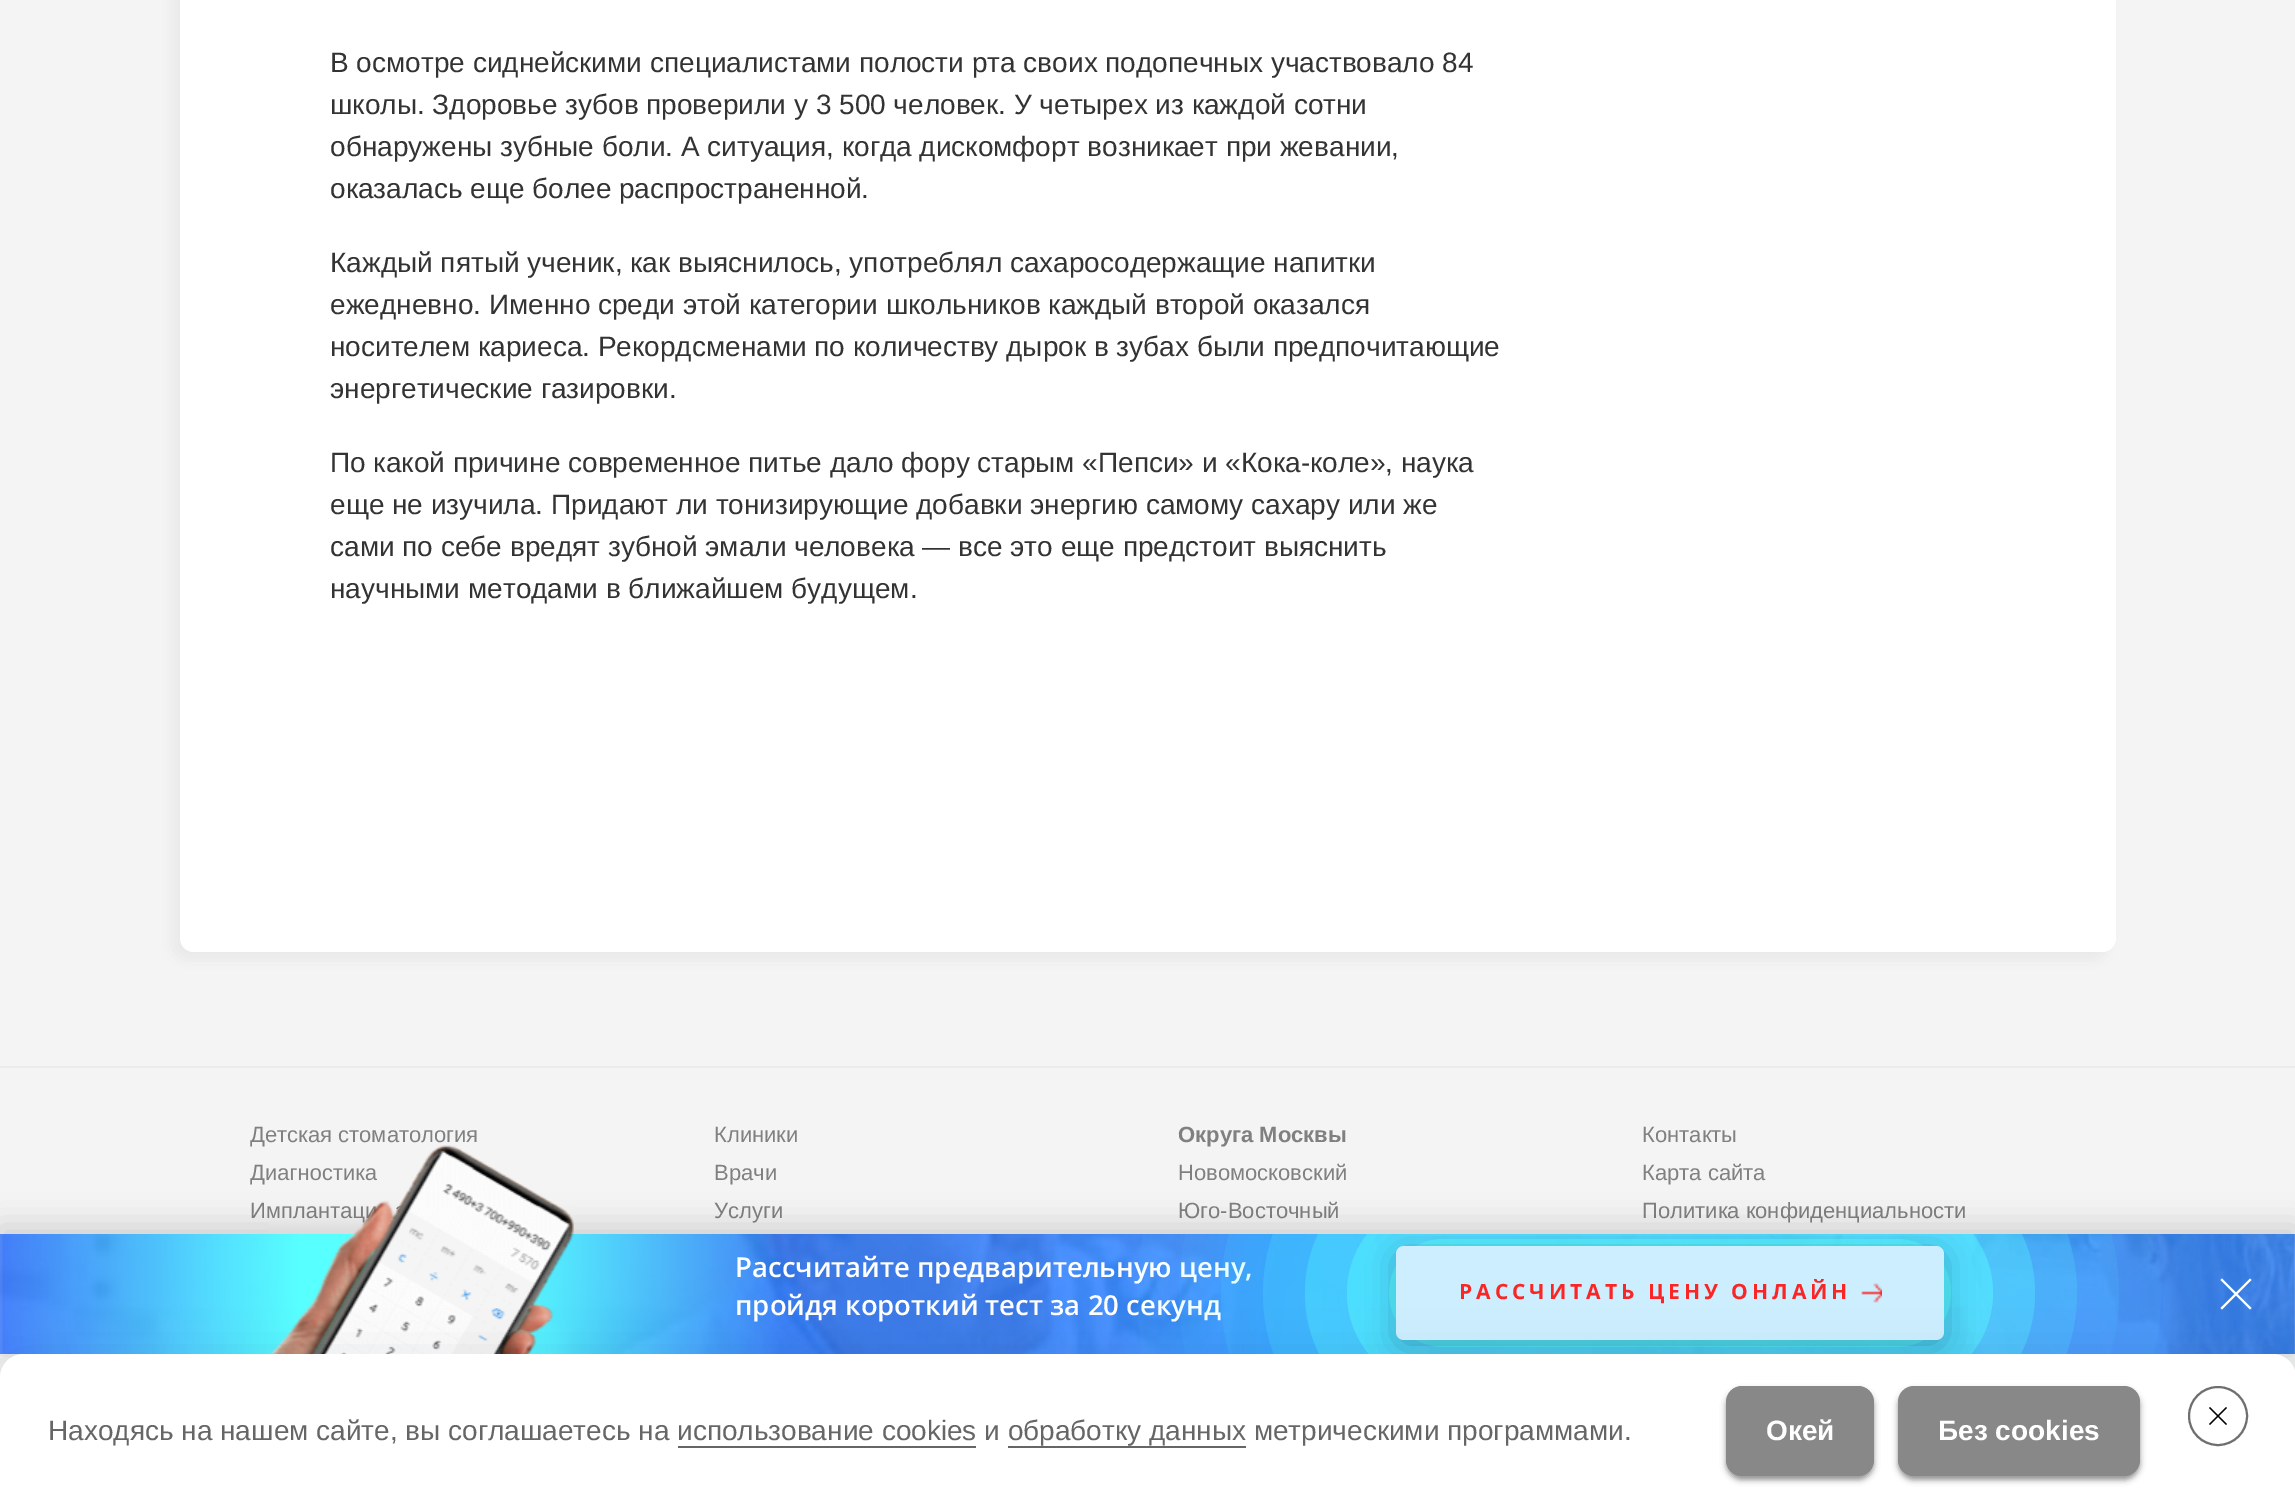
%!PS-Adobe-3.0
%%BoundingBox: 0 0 2295 1507
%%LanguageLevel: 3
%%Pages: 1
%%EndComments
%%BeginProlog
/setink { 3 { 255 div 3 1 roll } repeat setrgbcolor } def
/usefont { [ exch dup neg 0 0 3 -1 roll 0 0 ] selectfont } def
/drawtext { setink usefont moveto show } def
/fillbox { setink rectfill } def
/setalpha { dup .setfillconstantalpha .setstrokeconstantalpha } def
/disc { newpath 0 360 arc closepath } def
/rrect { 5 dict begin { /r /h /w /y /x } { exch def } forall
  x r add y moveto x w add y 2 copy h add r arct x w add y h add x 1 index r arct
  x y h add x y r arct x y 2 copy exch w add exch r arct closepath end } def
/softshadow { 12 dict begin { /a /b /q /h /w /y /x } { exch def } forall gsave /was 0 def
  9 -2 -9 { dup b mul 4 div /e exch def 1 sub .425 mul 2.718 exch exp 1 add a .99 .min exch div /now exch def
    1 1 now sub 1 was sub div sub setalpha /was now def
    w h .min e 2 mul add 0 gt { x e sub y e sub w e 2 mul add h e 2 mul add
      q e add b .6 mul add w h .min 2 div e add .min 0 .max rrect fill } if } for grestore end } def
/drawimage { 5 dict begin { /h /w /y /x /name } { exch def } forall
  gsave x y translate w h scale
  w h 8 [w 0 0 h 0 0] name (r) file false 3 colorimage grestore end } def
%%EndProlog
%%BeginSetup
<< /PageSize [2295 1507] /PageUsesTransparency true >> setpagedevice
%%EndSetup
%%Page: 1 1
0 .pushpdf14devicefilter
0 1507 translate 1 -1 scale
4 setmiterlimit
0 0 2295 1507 244 244 244 fillbox
232 232 232 setink
172 -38 1936 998 14 8 1 softshadow
255 255 255 setink
180 -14 1936 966 14 rrect fill
(В осмотре сиднейскими специалистами полости рта своих подопечных участвовало 84) 330 72 /LiberationSans-Regular 28 51 51 51 drawtext
(школы. Здоровье зубов проверили у 3 500 человек. У четырех из каждой сотни) 330 114 /LiberationSans-Regular 28 51 51 51 drawtext
(обнаружены зубные боли. А ситуация, когда дискомфорт возникает при жевании,) 330 156 /LiberationSans-Regular 28 51 51 51 drawtext
(оказалась еще более распространенной.) 330 198 /LiberationSans-Regular 28 51 51 51 drawtext
(Каждый пятый ученик, как выяснилось, употреблял сахаросодержащие напитки) 330 272 /LiberationSans-Regular 28 51 51 51 drawtext
(ежедневно. Именно среди этой категории школьников каждый второй оказался) 330 314 /LiberationSans-Regular 28 51 51 51 drawtext
(носителем кариеса. Рекордсменами по количеству дырок в зубах были предпочитающие) 330 356 /LiberationSans-Regular 28 51 51 51 drawtext
(энергетические газировки.) 330 398 /LiberationSans-Regular 28 51 51 51 drawtext
(По какой причине современное питье дало фору старым «Пепси» и «Кока-коле», наука) 330 472 /LiberationSans-Regular 28 51 51 51 drawtext
(еще не изучила. Придают ли тонизирующие добавки энергию самому сахару или же) 330 514 /LiberationSans-Regular 28 51 51 51 drawtext
(сами по себе вредят зубной эмали человека — все это еще предстоит выяснить) 330 556 /LiberationSans-Regular 28 51 51 51 drawtext
(научными методами в ближайшем будущем.) 330 598 /LiberationSans-Regular 28 51 51 51 drawtext
0 1066 2295 2 235 235 235 fillbox
(Детская стоматология) 250 1142 /LiberationSans-Regular 22 128 128 128 drawtext
(Диагностика) 250 1180 /LiberationSans-Regular 22 128 128 128 drawtext
(Имплантаци) 250 1218 /LiberationSans-Regular 22 128 128 128 drawtext
(Клиники) 714 1142 /LiberationSans-Regular 22 128 128 128 drawtext
(Врачи) 714 1180 /LiberationSans-Regular 22 128 128 128 drawtext
(Услуги) 714 1218 /LiberationSans-Regular 22 128 128 128 drawtext
(Округа Москвы) 1178 1142 /LiberationSans-Bold 22 128 128 128 drawtext
(Новомосковский) 1178 1180 /LiberationSans-Regular 22 128 128 128 drawtext
(Юго-Восточный) 1178 1218 /LiberationSans-Regular 22 128 128 128 drawtext
(Контакты) 1642 1142 /LiberationSans-Regular 22 128 128 128 drawtext
(Карта сайта) 1642 1180 /LiberationSans-Regular 22 128 128 128 drawtext
(Политика конфиденциальности) 1642 1218 /LiberationSans-Regular 22 128 128 128 drawtext
0 0 0 setink
0 1226 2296 120 0 15 0.15 softshadow
(assets/img1.rgb) 0 1234 2295 120 drawimage
(assets/img2.rgb) 269 1145 305 209 drawimage
(Рассчитайте предварительную цену,) 735 1277 /OpenSans-SemiBold 27.5 255 255 255 drawtext
(пройдя короткий тест за 20 секунд) 735 1315 /OpenSans-SemiBold 27.5 255 255 255 drawtext
gsave
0 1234 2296 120 rectclip
87 255 255 setink
1326 1176 688 234 78 84 1 softshadow
0 0 0 setink
1400 1256 540 86 4 16 0.3 softshadow
grestore
204 238 255 setink
1396 1246 548 94 8 rrect fill
/OpenSans-Bold 21 usefont
250 38 38 setink
1459 1299 moveto 4 0 (РАССЧИТАТЬ ЦЕНУ ОНЛАЙН) ashow
(assets/img3.rgb) 1861 1283 21 20 drawimage
255 255 255 setink
2220.5 1308 moveto 2250 1278.5 lineto 2251.5 1280 lineto 2222 1309.5 lineto closepath fill
2222 1278.5 moveto 2251.5 1308 lineto 2250 1309.5 lineto 2220.5 1280 lineto closepath fill
16 24 40 setink
0 1362 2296 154 24 24 0.14 softshadow
255 255 255 setink
24 1354 moveto 2272 1354 lineto 2285.5 1354 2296 1364.5 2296 1378 curveto 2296 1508 lineto 0 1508 lineto 0 1378 lineto 0 1364.5 10.5 1354 24 1354 curveto closepath fill
(Находясь на нашем сайте, вы соглашаетесь на использование cookies и обработку данных метрическими программами.) 48 1440 /LiberationSans-Regular 28 102 102 102 drawtext
678 1446 298 2 102 102 102 fillbox
1008 1446 238 2 102 102 102 fillbox
34 34 34 setink
1726 1390 148 90 16 3 0.5 softshadow
136 136 136 setink
1726 1386 148 90 16 rrect fill
(Окей) 1766 1440 /LiberationSans-Bold 28 255 255 255 drawtext
34 34 34 setink
1898 1390 242 90 16 3 0.5 softshadow
136 136 136 setink
1898 1386 242 90 16 rrect fill
(Без cookies) 1938 1440 /LiberationSans-Bold 28 255 255 255 drawtext
111 111 111 setink
2 setlinewidth
2218 1416 29 disc stroke
0 0 0 setink
2226 1407 moveto 2227 1408 lineto 2210 1425 lineto 2209 1424 lineto closepath fill
2209 1408 moveto 2210 1407 lineto 2227 1424 lineto 2226 1425 lineto closepath fill
.poppdf14devicefilter showpage
%%EOF
